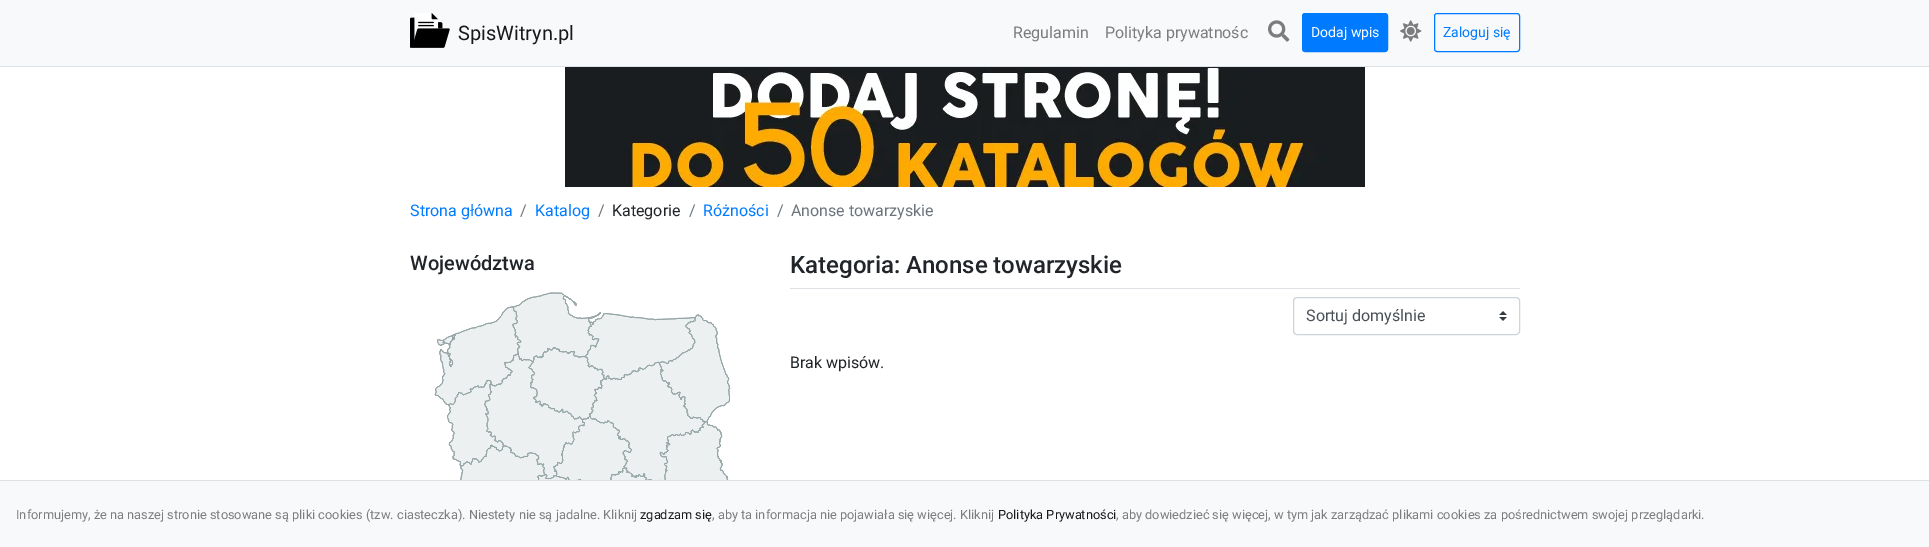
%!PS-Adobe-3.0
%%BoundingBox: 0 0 1929 547
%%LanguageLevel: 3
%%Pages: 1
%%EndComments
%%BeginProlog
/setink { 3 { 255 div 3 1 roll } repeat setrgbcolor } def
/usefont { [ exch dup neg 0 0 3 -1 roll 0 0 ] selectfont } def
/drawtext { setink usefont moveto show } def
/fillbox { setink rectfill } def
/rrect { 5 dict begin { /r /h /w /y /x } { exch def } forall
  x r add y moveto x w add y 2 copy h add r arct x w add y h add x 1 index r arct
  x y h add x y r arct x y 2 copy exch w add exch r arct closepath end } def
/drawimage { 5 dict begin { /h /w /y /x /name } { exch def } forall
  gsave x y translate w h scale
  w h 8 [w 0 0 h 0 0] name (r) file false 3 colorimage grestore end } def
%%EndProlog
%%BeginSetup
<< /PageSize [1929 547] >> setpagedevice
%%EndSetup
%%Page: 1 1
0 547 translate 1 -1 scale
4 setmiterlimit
0 0 1929 547 255 255 255 fillbox
0 0 1929 66 248 249 250 fillbox
0 66 1929 1 222 226 230 fillbox
(assets/img1.rgb) 410 13 40 35 drawimage
(SpisWitryn.pl) 458 40 /Roboto-Regular 20 25 25 25 drawtext
(Regulamin) 1013 38 /Roboto-Regular 16 124 125 125 drawtext
(Polityka prywatnośc) 1105 38 /Roboto-Regular 16 124 125 125 drawtext
(assets/img2.rgb) 1268 20 22 22 drawimage
0 123 255 setink
1302.5 13.5 85 38 2.5 rrect gsave fill grestore
stroke
(Dodaj wpis) 1311 37 /Roboto-Regular 14 255 255 255 drawtext
(assets/img3.rgb) 1400 20 22 22 drawimage
0 123 255 setink
1434.5 13.5 85 38 2.5 rrect stroke
(Zaloguj się) 1443 37 /Roboto-Regular 14 0 123 255 drawtext
(assets/img4.rgb) 565 67 800 120 drawimage
(Strona główna) 410 216 /Roboto-Regular 16 0 123 255 drawtext
(/) 520 216 /Roboto-Regular 16 108 117 125 drawtext
(Katalog) 535 216 /Roboto-Regular 16 0 123 255 drawtext
(/) 598 216 /Roboto-Regular 16 108 117 125 drawtext
(Kategorie) 612 216 /Roboto-Regular 16 33 37 41 drawtext
(/) 689 216 /Roboto-Regular 16 108 117 125 drawtext
(Różności) 703 216 /Roboto-Regular 16 0 123 255 drawtext
(/) 777 216 /Roboto-Regular 16 108 117 125 drawtext
(Anonse towarzyskie) 791 216 /Roboto-Regular 16 108 117 125 drawtext
(Województwa) 410 270 /Roboto-Medium 20 33 37 41 drawtext
(assets/img5.rgb) 434 292 297 188 drawimage
790 288 730 1 222 226 230 fillbox
(Kategoria: Anonse towarzyskie) 790 273 /Roboto-Medium 24 33 37 41 drawtext
(assets/img6.rgb) 1499 311 8 10 drawimage
206 212 218 setink
1293.5 297.5 226 37 3.5 rrect stroke
(Sortuj domyślnie) 1306 321 /Roboto-Regular 16 73 80 87 drawtext
(Brak wpisów.) 790 368 /Roboto-Regular 16 33 37 41 drawtext
0 481 1929 66 248 249 250 fillbox
0 480 1929 1 222 226 230 fillbox
(Informujemy, że na naszej stronie stosowane są pliki cookies \(tzw. ciasteczka\). Niestety nie są jadalne. Kliknij) 16 519 /Roboto-Regular 12.8 124 125 125 drawtext
(zgadzam się) 640 519 /Roboto-Regular 12.8 25 25 25 drawtext
(, aby ta informacja nie pojawiała się więcej. Kliknij) 712 519 /Roboto-Regular 12.8 124 125 125 drawtext
(Polityka Prywatności) 998 519 /Roboto-Regular 12.8 25 25 25 drawtext
(, aby dowiedzieć się więcej, w tym jak zarządzać plikami cookies za pośrednictwem swojej przeglądarki.) 1116 519 /Roboto-Regular 12.8 124 125 125 drawtext
showpage
%%EOF
